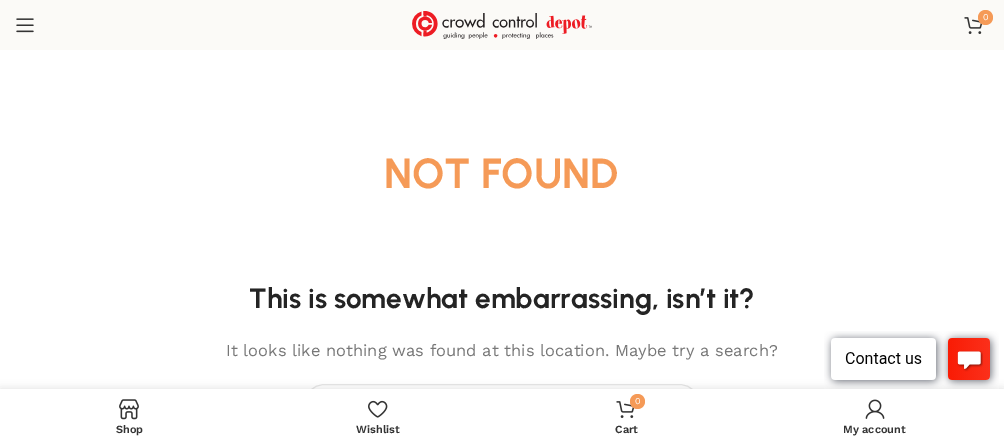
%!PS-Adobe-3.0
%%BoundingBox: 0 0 1004 444
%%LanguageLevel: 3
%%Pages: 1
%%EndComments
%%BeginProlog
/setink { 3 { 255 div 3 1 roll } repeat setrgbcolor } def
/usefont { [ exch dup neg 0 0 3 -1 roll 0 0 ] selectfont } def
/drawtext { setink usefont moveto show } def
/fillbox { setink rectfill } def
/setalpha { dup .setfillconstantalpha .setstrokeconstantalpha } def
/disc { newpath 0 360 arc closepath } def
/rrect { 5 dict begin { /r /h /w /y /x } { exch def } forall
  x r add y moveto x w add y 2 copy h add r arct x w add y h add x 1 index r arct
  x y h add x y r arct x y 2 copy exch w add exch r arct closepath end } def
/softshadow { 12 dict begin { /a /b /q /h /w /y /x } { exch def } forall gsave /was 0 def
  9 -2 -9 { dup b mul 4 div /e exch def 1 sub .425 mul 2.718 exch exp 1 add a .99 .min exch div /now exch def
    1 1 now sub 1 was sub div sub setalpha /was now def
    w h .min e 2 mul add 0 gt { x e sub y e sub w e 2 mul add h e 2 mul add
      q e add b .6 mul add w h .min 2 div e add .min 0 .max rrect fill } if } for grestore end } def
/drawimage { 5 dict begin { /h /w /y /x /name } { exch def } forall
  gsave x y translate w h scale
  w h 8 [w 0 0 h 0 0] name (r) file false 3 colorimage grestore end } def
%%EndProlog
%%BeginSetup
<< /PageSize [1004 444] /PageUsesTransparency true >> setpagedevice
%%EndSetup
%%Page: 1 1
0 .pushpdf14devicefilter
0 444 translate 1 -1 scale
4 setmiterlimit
0 0 1004 444 255 255 255 fillbox
0 0 1004 50 251 250 247 fillbox
(assets/img1.rgb) 16 18 18 15 drawimage
(assets/img2.rgb) 412 11 180 28 drawimage
(assets/img3.rgb) 964 17 19 17 drawimage
245 154 87 setink
985.5 17.5 7.5 disc fill
(0) 983 20 /WorkSans-Regular 9 255 255 255 drawtext
(NOT FOUND) 384 188 /Urbanist-Bold 42 245 154 87 drawtext
(This is somewhat embarrassing, isn’t it?) 249 308 /Urbanist-Bold 28 36 36 36 drawtext
(It looks like nothing was found at this location. Maybe try a search?) 226 356 /WorkSans-Regular 16.5 119 119 119 drawtext
230 230 230 setink
302.5 384.5 399 45 22.5 rrect stroke
0 0 0 setink
0 389 1004 55 0 4.5 0.12 softshadow
(assets/img4.rgb) 824 331 175 58 drawimage
0 389 1004 55 255 255 255 fillbox
(assets/img5.rgb) 119 399 20 21 drawimage
(Shop) 116 433 /WorkSans-SemiBold 11 51 51 51 drawtext
(assets/img6.rgb) 368 400 20 18 drawimage
(Wishlist) 356 433 /WorkSans-SemiBold 11 51 51 51 drawtext
(assets/img7.rgb) 616 401 19 17 drawimage
245 154 87 setink
637.5 401.5 7.5 disc fill
(0) 635 404 /WorkSans-Regular 9 255 255 255 drawtext
(Cart) 615 433 /WorkSans-SemiBold 11 51 51 51 drawtext
(assets/img8.rgb) 865 399 20 20 drawimage
(My account) 843 433 /WorkSans-SemiBold 11 51 51 51 drawtext
.poppdf14devicefilter showpage
%%EOF
